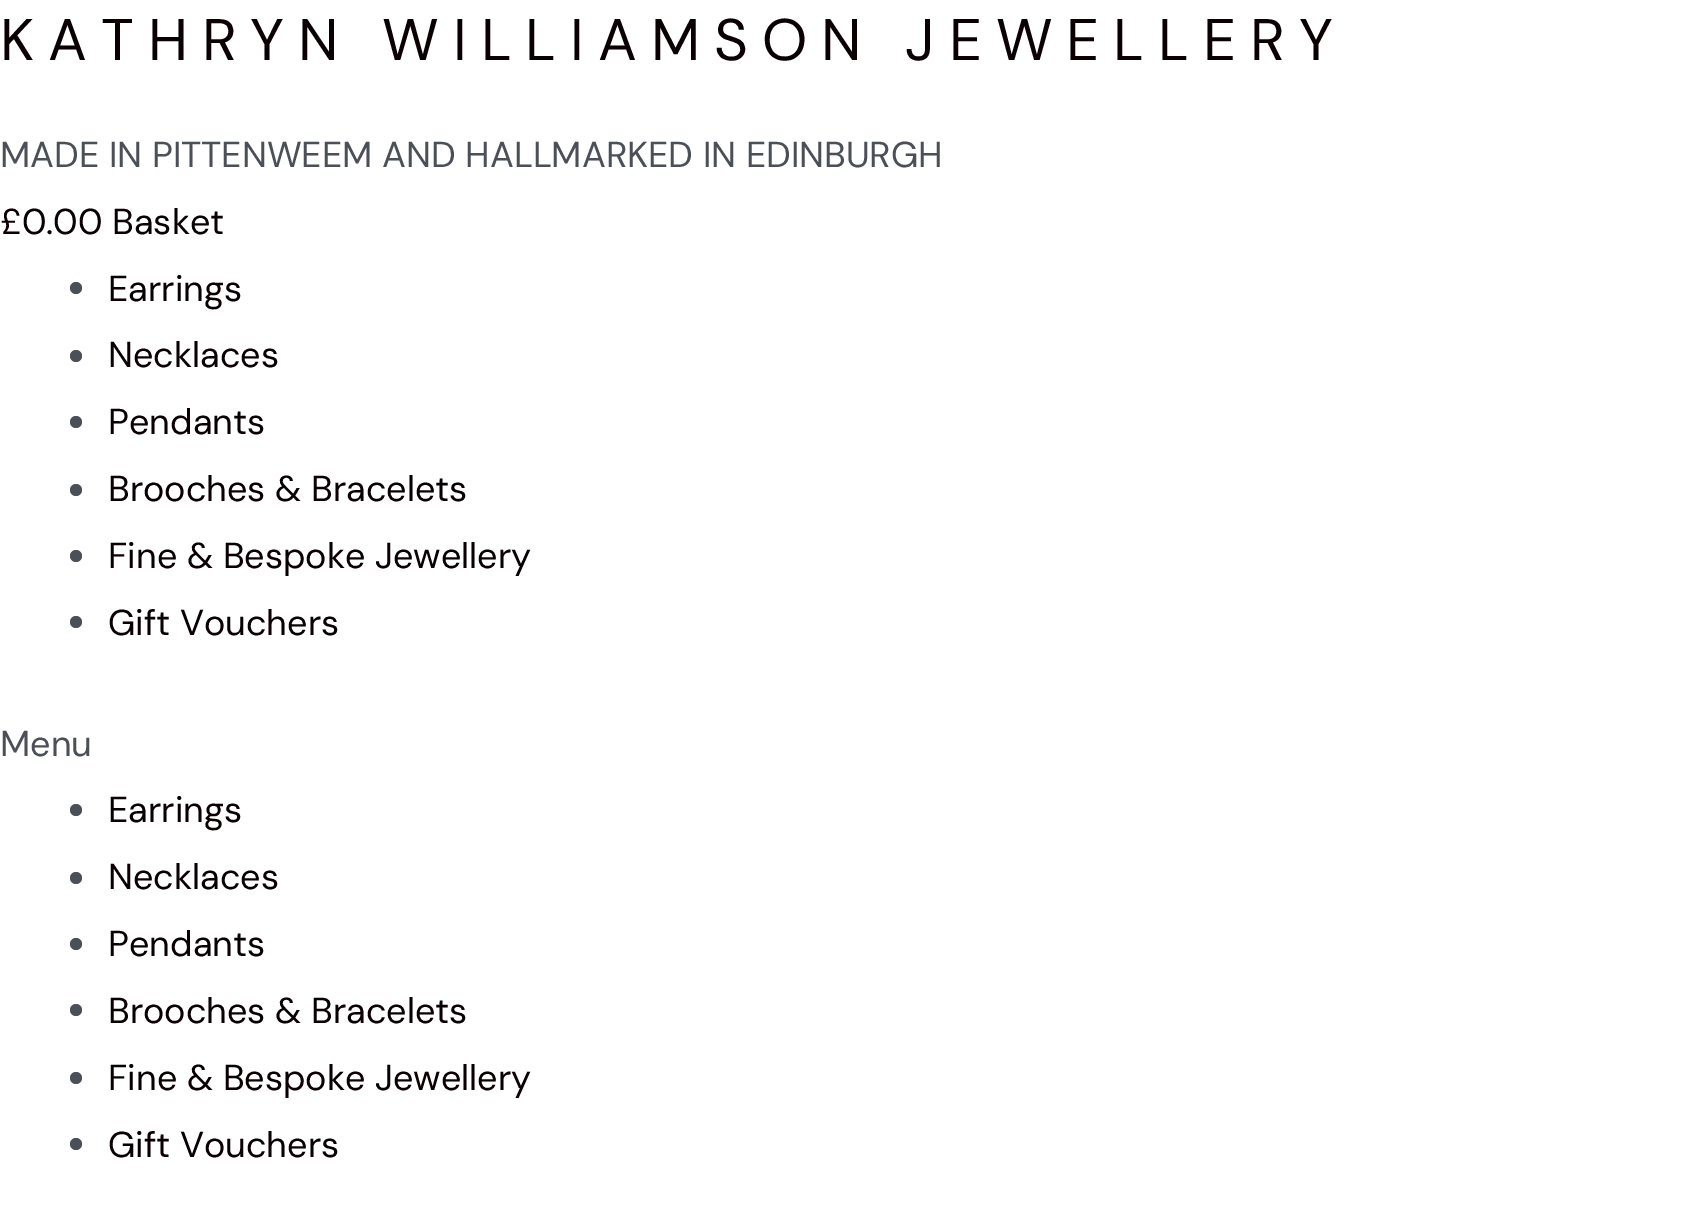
%!PS-Adobe-3.0
%%BoundingBox: 0 0 1693 1225
%%LanguageLevel: 3
%%Pages: 1
%%EndComments
%%BeginProlog
/setink { 3 { 255 div 3 1 roll } repeat setrgbcolor } def
/usefont { [ exch dup neg 0 0 3 -1 roll 0 0 ] selectfont } def
/drawtext { setink usefont moveto show } def
/fillbox { setink rectfill } def
/disc { newpath 0 360 arc closepath } def
%%EndProlog
%%BeginSetup
<< /PageSize [1693 1225] >> setpagedevice
%%EndSetup
%%Page: 1 1
0 1225 translate 1 -1 scale
4 setmiterlimit
0 0 1693 1225 255 255 255 fillbox
/DMSans-Regular 58.5 usefont
10 0 2 setink
0 60 moveto 14 0 (KATHRYN WILLIAMSON JEWELLERY) ashow
(MADE IN PITTENWEEM AND HALLMARKED IN EDINBURGH) 0 167 /DMSans-Regular 36 75 79 88 drawtext
(£0.00 Basket) 0 234 /DMSans-Regular 36 10 0 2 drawtext
75 79 88 setink
76 288 6 disc fill
(Earrings) 108 301 /DMSans-Regular 36 10 0 2 drawtext
75 79 88 setink
76 356 6 disc fill
(Necklaces) 108 367 /DMSans-Regular 36 10 0 2 drawtext
75 79 88 setink
76 422 6 disc fill
(Pendants) 108 434 /DMSans-Regular 36 10 0 2 drawtext
75 79 88 setink
76 490 6 disc fill
(Brooches & Bracelets) 108 501 /DMSans-Regular 36 10 0 2 drawtext
75 79 88 setink
76 556 6 disc fill
(Fine & Bespoke Jewellery) 108 568 /DMSans-Regular 36 10 0 2 drawtext
75 79 88 setink
76 622 6 disc fill
(Gift Vouchers) 108 635 /DMSans-Regular 36 10 0 2 drawtext
(Menu) 0 756 /DMSans-Regular 36 75 79 88 drawtext
76 810 6 disc fill
(Earrings) 108 822 /DMSans-Regular 36 10 0 2 drawtext
75 79 88 setink
76 878 6 disc fill
(Necklaces) 108 889 /DMSans-Regular 36 10 0 2 drawtext
75 79 88 setink
76 944 6 disc fill
(Pendants) 108 956 /DMSans-Regular 36 10 0 2 drawtext
75 79 88 setink
76 1010 6 disc fill
(Brooches & Bracelets) 108 1023 /DMSans-Regular 36 10 0 2 drawtext
75 79 88 setink
76 1078 6 disc fill
(Fine & Bespoke Jewellery) 108 1090 /DMSans-Regular 36 10 0 2 drawtext
75 79 88 setink
76 1144 6 disc fill
(Gift Vouchers) 108 1157 /DMSans-Regular 36 10 0 2 drawtext
showpage
%%EOF
